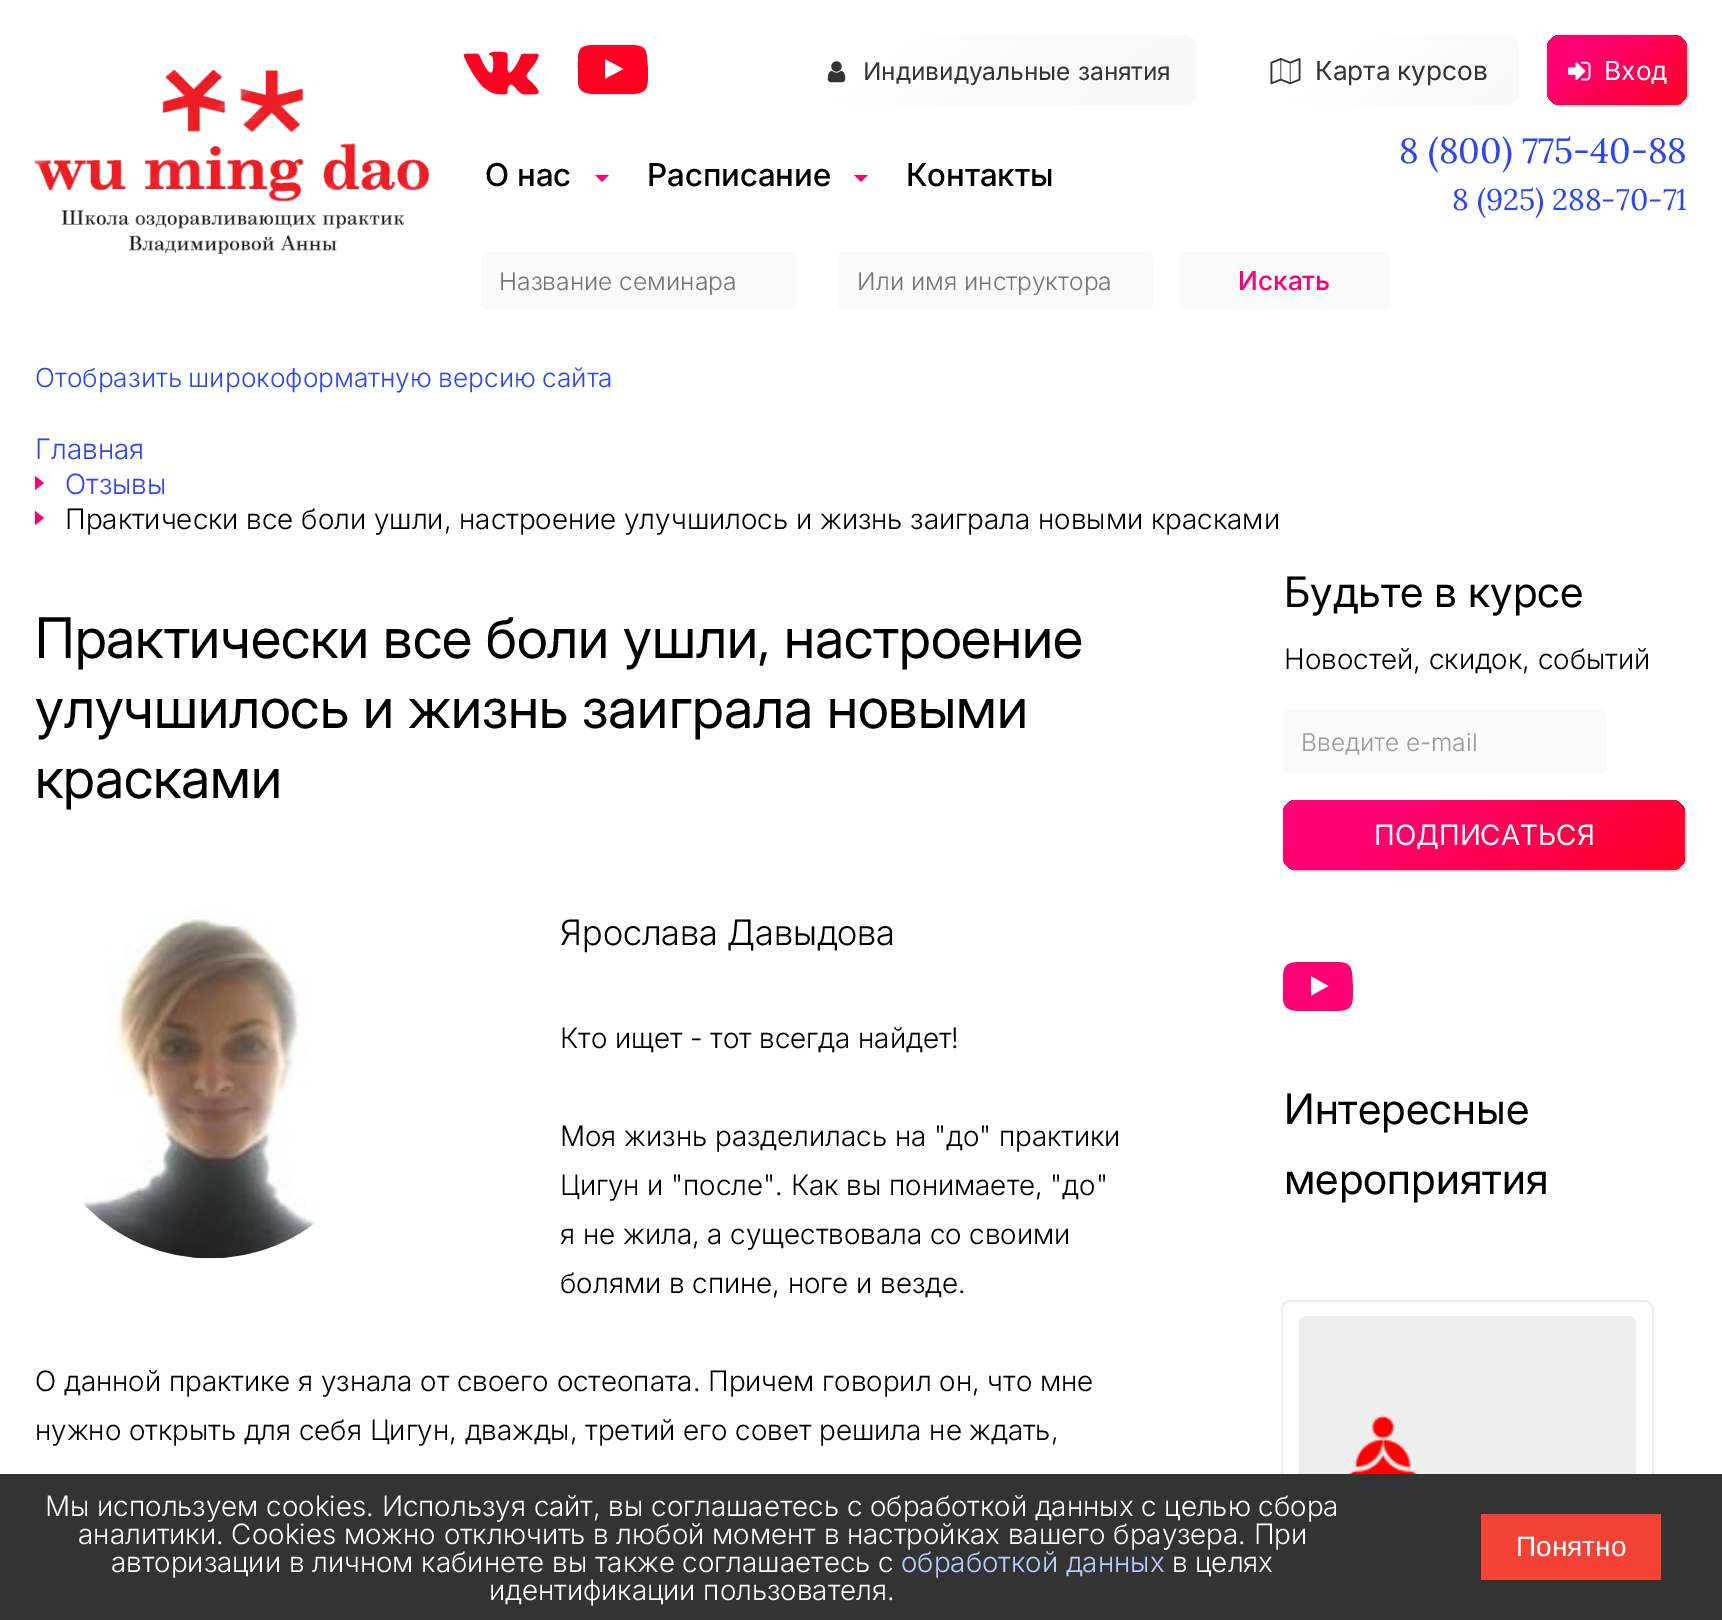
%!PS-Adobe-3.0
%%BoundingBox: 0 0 1722 1620
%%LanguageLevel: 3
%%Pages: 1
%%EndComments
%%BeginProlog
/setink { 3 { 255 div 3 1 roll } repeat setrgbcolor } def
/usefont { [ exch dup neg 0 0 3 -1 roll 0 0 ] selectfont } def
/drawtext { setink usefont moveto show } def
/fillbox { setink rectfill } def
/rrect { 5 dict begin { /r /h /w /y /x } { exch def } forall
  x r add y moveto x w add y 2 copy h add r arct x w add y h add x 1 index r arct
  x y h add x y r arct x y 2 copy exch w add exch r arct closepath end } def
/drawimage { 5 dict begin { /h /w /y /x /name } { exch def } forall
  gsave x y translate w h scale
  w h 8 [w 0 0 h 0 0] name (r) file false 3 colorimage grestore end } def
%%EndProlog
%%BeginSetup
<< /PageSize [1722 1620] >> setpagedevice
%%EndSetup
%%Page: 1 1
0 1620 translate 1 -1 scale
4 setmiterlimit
0 0 1722 1620 255 255 255 fillbox
(assets/img1.rgb) 35 70 394 184 drawimage
(assets/img2.rgb) 463 51 76 44 drawimage
255 0 35 setink
605 79 moveto 624 69 lineto 605 59 lineto closepath 612 45 moveto 633 45 lineto 642 46 646 47 647 57 curveto 648 70 lineto 648 88 648 93 632 94 curveto 612 94 lineto 593 94 lineto 584 93 579 92 578 82 curveto 578 69 lineto 578 51 577 46 593 45 curveto closepath fill
gsave 802 35 395 70 14 rrect clip newpath
<< /ShadingType 2 /ColorSpace /DeviceRGB /Coords [907 -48 1091 188] /Extend [true true] /Function << /FunctionType 3 /Domain [0 1] /Functions [<< /FunctionType 2 /Domain [0 1] /C0 [1 1 1] /C1 [1 1 1] /N 1 >> << /FunctionType 2 /Domain [0 1] /C0 [1 1 1] /C1 [0.984 0.98 0.98] /N 1 >> << /FunctionType 2 /Domain [0 1] /C0 [0.984 0.98 0.98] /C1 [0.973 0.973 0.973] /N 1 >>] /Bounds [0.25 0.5] /Encode [0 1 0 1 0 1] >> >> shfill grestore
(assets/img3.rgb) 827 61 19 22 drawimage
(Индивидуальные занятия) 863 80 /Inter-Regular 24.5 51 51 51 drawtext
gsave 1239 35 280 70 14 rrect clip newpath
<< /ShadingType 2 /ColorSpace /DeviceRGB /Coords [1309 -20 1449 160] /Extend [true true] /Function << /FunctionType 3 /Domain [0 1] /Functions [<< /FunctionType 2 /Domain [0 1] /C0 [1 1 1] /C1 [1 1 1] /N 1 >> << /FunctionType 2 /Domain [0 1] /C0 [1 1 1] /C1 [0.984 0.98 0.98] /N 1 >> << /FunctionType 2 /Domain [0 1] /C0 [0.984 0.98 0.98] /C1 [0.973 0.973 0.973] /N 1 >>] /Bounds [0.35 0.7] /Encode [0 1 0 1 0 1] >> >> shfill grestore
(assets/img4.rgb) 1270 58 31 27 drawimage
/Inter-Regular 26.25 usefont
1315 80 moveto -1 0 32 (Карта курсов) widthshow
217 217 217 setink
1552 102 moveto 1555 105 1559 107 1563 107 curveto 1675 107 lineto 1683 107 1689 101 1689 93 curveto 1689 51 lineto 1689 47 1687 43 1684 40 curveto 1686 43 1687 46 1687 49 curveto 1687 91 lineto 1687 99 1681 105 1673 105 curveto 1561 105 lineto 1558 105 1555 104 1552 102 curveto closepath fill
gsave 1547 35 140 70 14 rrect clip newpath
<< /ShadingType 2 /ColorSpace /DeviceRGB /Coords [1573 14 1661 126] /Extend [true true] /Function << /FunctionType 3 /Domain [0 1] /Functions [<< /FunctionType 2 /Domain [0 1] /C0 [1 0 0.455] /C1 [1 0 0.455] /N 1 >> << /FunctionType 2 /Domain [0 1] /C0 [1 0 0.455] /C1 [1 0 0.137] /N 1 >>] /Bounds [0.25] /Encode [0 1 0 1] >> >> shfill grestore
(assets/img5.rgb) 1568 61 23 20 drawimage
(Вход) 1604 80 /Inter-Regular 26.25 255 255 255 drawtext
(О нас) 485 186 /Inter-Medium 31.5 0 0 0 drawtext
255 0 116 setink
595 175 moveto 609 175 lineto 602 182 lineto closepath fill
(Расписание) 647 186 /Inter-Medium 31.5 0 0 0 drawtext
255 0 116 setink
854 175 moveto 868 175 lineto 861 182 lineto closepath fill
(Контакты) 906 186 /Inter-Medium 31.5 0 0 0 drawtext
(8 \(800\) 775-40-88) 1399 163 /Lora-Regular 35 44 69 242 drawtext
(8 \(925\) 288-70-71) 1452 210 /Lora-Regular 29.75 44 69 242 drawtext
250 250 250 setink
481 252 315 58 7 rrect fill
(Название семинара) 499 290 /Inter-Light 24.5 117 117 117 drawtext
250 250 250 setink
838 252 315 58 7 rrect fill
(Или имя инструктора) 857 290 /Inter-Light 24.5 117 117 117 drawtext
250 250 250 setink
1180 252 210 58 7 rrect fill
(Искать) 1238 290 /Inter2-Medium 26.25 255 0 116 drawtext
/Inter-Light 26.25 usefont
44 69 242 setink
35 387 moveto -1 0 32 (Отобразить широкоформатную версию сайта) widthshow
(Главная) 35 459 /Inter2-Light 28 44 69 242 drawtext
255 0 116 setink
35 490 moveto 35 476 lineto 44 483 lineto closepath fill
(Отзывы) 65 494 /Inter2-Light 28 44 69 242 drawtext
255 0 116 setink
35 525 moveto 35 511 lineto 44 518 lineto closepath fill
(Практически все боли ушли, настроение улучшилось и жизнь заиграла новыми красками) 65 529 /Inter2-Light 28 0 0 0 drawtext
(Практически все боли ушли, настроение) 35 658 /Inter2-Regular 56 0 0 0 drawtext
(улучшилось и жизнь заиграла новыми) 35 728 /Inter2-Regular 56 0 0 0 drawtext
(красками) 35 798 /Inter2-Regular 56 0 0 0 drawtext
(assets/img6.rgb) 83 909 238 350 drawimage
(Ярослава Давыдова) 560 945 /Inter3-Light 35 0 0 0 drawtext
(Кто ищет - тот всегда найдет!) 560 1048 /Inter2-Light 28 0 0 0 drawtext
(Моя жизнь разделилась на "до" практики) 560 1146 /Inter2-Light 28 0 0 0 drawtext
(Цигун и "после". Как вы понимаете, "до") 560 1195 /Inter2-Light 28 0 0 0 drawtext
(я не жила, а существовала со своими) 560 1244 /Inter2-Light 28 0 0 0 drawtext
(болями в спине, ноге и везде.) 560 1293 /Inter2-Light 28 0 0 0 drawtext
(О данной практике я узнала от своего остеопата. Причем говорил он, что мне) 35 1391 /Inter2-Light 28 0 0 0 drawtext
(нужно открыть для себя Цигун, дважды, третий его совет решила не ждать,) 35 1440 /Inter2-Light 28 0 0 0 drawtext
(Будьте в курсе) 1284 607 /Inter3-Regular 42 0 0 0 drawtext
(Новостей, скидок, событий) 1284 669 /Inter2-Light 28 0 0 0 drawtext
250 250 250 setink
1283 709 324 65 7 rrect fill
(Введите e-mail) 1301 751 /Inter-Light 24.5 153 153 153 drawtext
217 217 217 setink
1288 867 moveto 1291 870 1295 872 1299 872 curveto 1673 872 lineto 1681 872 1687 866 1687 858 curveto 1687 816 lineto 1687 812 1686 809 1683 806 curveto 1684 808 1685 811 1685 814 curveto 1685 856 lineto 1685 863 1679 870 1671 870 curveto 1297 870 lineto 1293 870 1290 869 1288 867 curveto closepath fill
gsave 1283 800 402 70 14 rrect clip newpath
<< /ShadingType 2 /ColorSpace /DeviceRGB /Coords [1391 715 1577 954] /Extend [true true] /Function << /FunctionType 3 /Domain [0 1] /Functions [<< /FunctionType 2 /Domain [0 1] /C0 [1 0 0.455] /C1 [1 0 0.455] /N 1 >> << /FunctionType 2 /Domain [0 1] /C0 [1 0 0.455] /C1 [1 0 0.137] /N 1 >>] /Bounds [0.25] /Encode [0 1 0 1] >> >> shfill grestore
(ПОДПИСАТЬСЯ) 1374 845 /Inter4-Regular 28 255 255 255 drawtext
255 0 116 setink
1311 996 moveto 1329 986 lineto 1311 976 lineto closepath 1318 962 moveto 1339 962 lineto 1347 963 1351 964 1352 974 curveto 1353 987 lineto 1353 1005 1353 1010 1337 1011 curveto 1318 1011 lineto 1298 1011 lineto 1289 1010 1284 1009 1283 999 curveto 1283 986 lineto 1283 968 1283 963 1298 962 curveto closepath fill
(Интересные) 1284 1124 /Inter3-Regular 42 0 0 0 drawtext
(мероприятия) 1284 1194 /Inter3-Regular 42 0 0 0 drawtext
239 239 239 setink
2 setlinewidth
1282 1301 371 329 8 rrect stroke
(assets/img7.rgb) 1298 1316 338 158 drawimage
0 1474 1722 146 51 51 51 fillbox
(Мы используем cookies. Используя сайт, вы соглашаетесь с обработкой данных с целью сбора) 45 1516 /Inter2-Light 28 255 255 255 drawtext
(аналитики. Cookies можно отключить в любой момент в настройках вашего браузера. При) 78 1544 /Inter2-Light 28 255 255 255 drawtext
(авторизации в личном кабинете вы также соглашаетесь с) 111 1572 /Inter2-Light 28 255 255 255 drawtext
(обработкой данных) 901 1572 /Inter2-Light 28 183 207 255 drawtext
(в целях) 1172 1572 /Inter2-Light 28 255 255 255 drawtext
(идентификации пользователя.) 489 1600 /Inter2-Light 28 255 255 255 drawtext
1481 1514 180 66 244 67 54 fillbox
(Понятно) 1516 1556 /LiberationSans-Regular 28 255 255 255 drawtext
showpage
%%EOF
